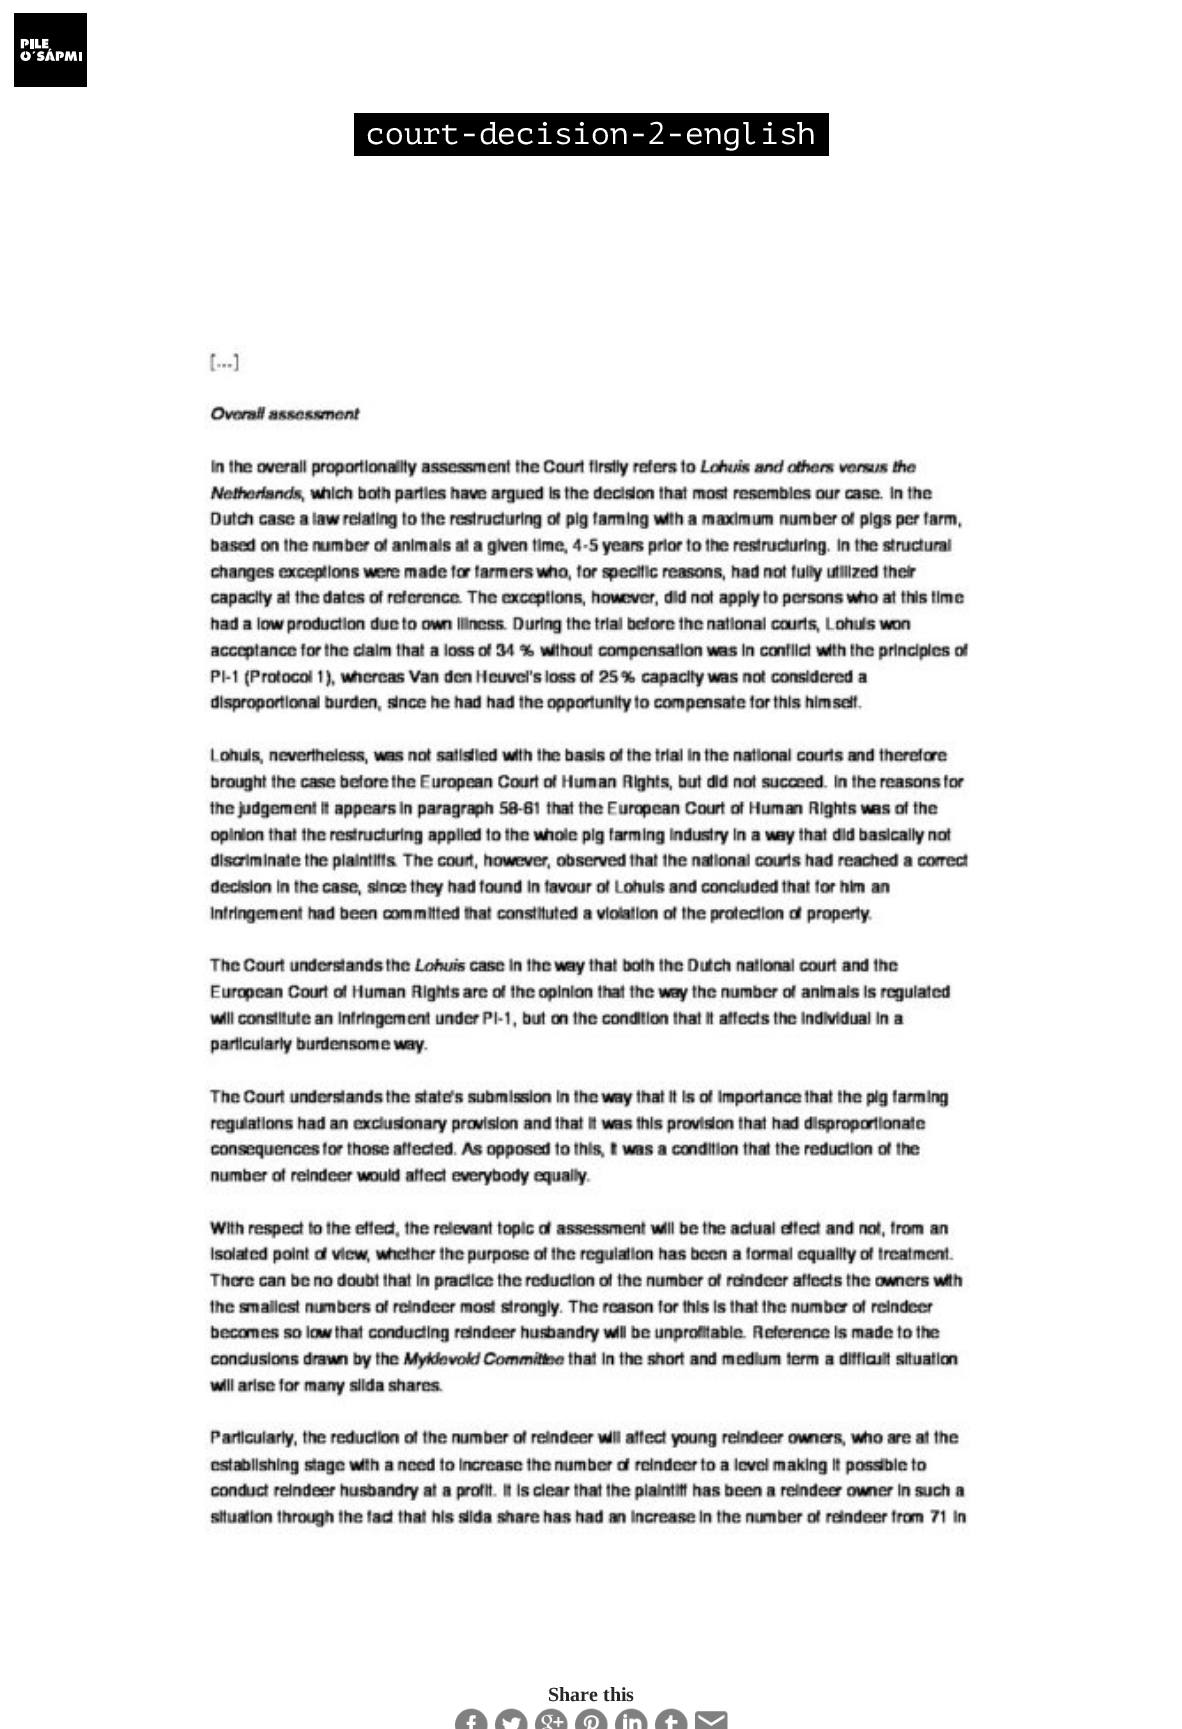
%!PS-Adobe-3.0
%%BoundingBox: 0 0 1182 1729
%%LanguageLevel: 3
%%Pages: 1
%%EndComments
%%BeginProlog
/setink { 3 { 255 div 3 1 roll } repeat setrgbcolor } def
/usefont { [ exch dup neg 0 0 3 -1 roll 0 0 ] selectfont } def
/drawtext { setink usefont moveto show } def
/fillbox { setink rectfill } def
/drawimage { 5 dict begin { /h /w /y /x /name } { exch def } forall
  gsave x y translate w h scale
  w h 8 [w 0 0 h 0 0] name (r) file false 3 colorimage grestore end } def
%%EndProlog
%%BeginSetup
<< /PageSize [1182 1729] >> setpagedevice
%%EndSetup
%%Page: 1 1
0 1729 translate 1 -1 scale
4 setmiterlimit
0 0 1182 1729 255 255 255 fillbox
(assets/img1.rgb) 14 13 73 74 drawimage
354 113 475 43 0 0 0 fillbox
(court-decision-2-english) 366 144 /PTMono-Regular 31.25 255 255 255 drawtext
(assets/img2.rgb) 204 345 766 1190 drawimage
(Share this) 548 1701 /LiberationSerif-Bold 20 39 39 39 drawtext
(assets/img3.rgb) 455 1708 33 21 drawimage
(assets/img4.rgb) 495 1708 33 21 drawimage
(assets/img5.rgb) 535 1708 33 21 drawimage
(assets/img6.rgb) 575 1708 33 21 drawimage
(assets/img7.rgb) 615 1708 33 21 drawimage
(assets/img8.rgb) 655 1708 33 21 drawimage
(assets/img9.rgb) 695 1711 33 18 drawimage
showpage
%%EOF
